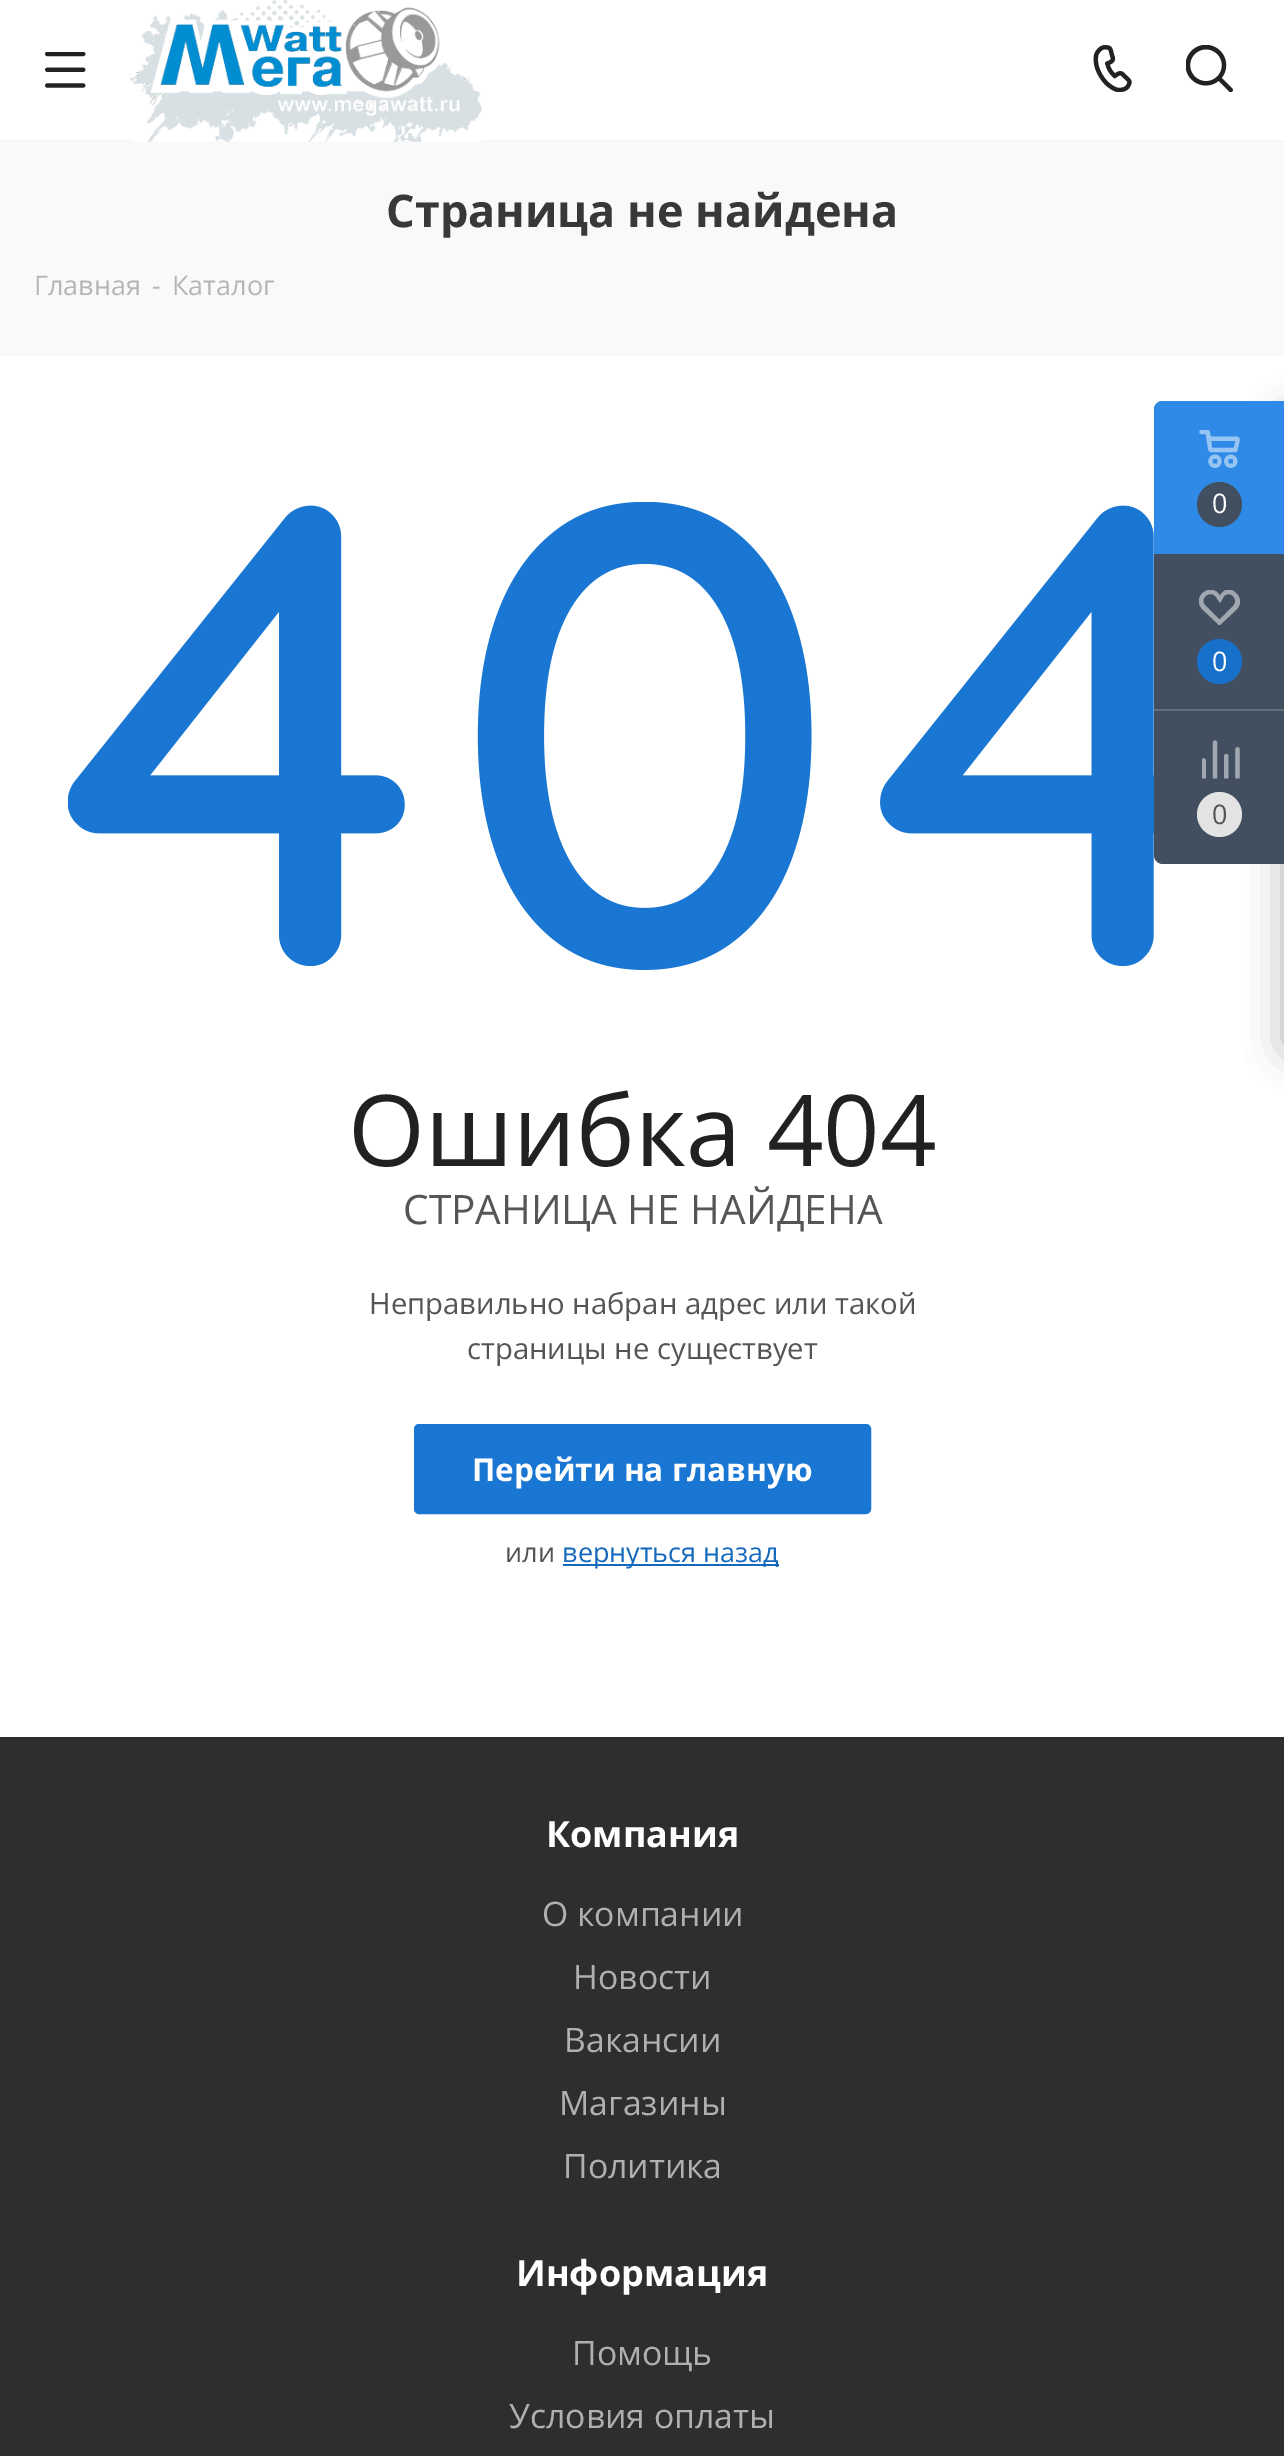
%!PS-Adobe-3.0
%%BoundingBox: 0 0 1284 2456
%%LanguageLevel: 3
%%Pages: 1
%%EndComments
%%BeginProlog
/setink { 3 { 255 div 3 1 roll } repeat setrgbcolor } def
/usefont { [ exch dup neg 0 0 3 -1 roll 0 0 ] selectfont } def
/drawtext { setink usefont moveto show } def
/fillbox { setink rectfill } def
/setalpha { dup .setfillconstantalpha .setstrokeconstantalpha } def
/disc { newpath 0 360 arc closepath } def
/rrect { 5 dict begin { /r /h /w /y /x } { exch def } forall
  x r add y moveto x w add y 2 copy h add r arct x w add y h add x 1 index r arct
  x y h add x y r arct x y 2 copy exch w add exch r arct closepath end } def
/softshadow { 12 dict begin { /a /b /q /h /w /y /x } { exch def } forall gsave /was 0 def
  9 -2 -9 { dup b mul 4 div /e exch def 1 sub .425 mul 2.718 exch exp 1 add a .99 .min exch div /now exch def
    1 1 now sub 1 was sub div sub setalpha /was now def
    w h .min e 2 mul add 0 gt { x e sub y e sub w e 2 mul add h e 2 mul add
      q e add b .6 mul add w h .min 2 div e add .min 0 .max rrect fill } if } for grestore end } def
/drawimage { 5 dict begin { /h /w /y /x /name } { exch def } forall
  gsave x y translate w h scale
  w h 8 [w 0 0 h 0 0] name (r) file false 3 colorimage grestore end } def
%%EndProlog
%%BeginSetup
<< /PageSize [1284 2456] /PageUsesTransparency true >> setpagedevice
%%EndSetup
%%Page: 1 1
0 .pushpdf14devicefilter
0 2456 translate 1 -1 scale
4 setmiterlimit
0 0 1284 2456 255 255 255 fillbox
0 140 1284 2 245 245 245 fillbox
(assets/img1.rgb) 45 52 41 36 drawimage
(assets/img2.rgb) 130 0 352 142 drawimage
(assets/img3.rgb) 1093 45 39 47 drawimage
(assets/img4.rgb) 1186 45 47 47 drawimage
0 142 1284 214 249 249 249 fillbox
(Страница не найдена) 386 227 /OpenSans-Bold 45 56 56 56 drawtext
(Главная) 34 295 /OpenSans-Regular 27 182 181 181 drawtext
(-) 152 295 /OpenSans-Regular 27 182 181 181 drawtext
(Каталог) 172 295 /OpenSans-Regular 27 182 181 181 drawtext
(assets/img5.rgb) 68 502 1086 468 drawimage
(Ошибка 404) 348 1166 /OpenSans-Regular 99 33 33 33 drawtext
(СТРАНИЦА НЕ НАЙДЕНА) 403 1224 /OpenSans-Regular 40.5 85 85 85 drawtext
(Неправильно набран адрес или такой) 369 1314 /OpenSans-Regular 29.25 85 85 85 drawtext
(страницы не существует) 467 1359 /OpenSans-Regular 29.25 85 85 85 drawtext
25 118 210 setink
415 1425 455 88 4 rrect gsave fill grestore
2 setlinewidth
stroke
(Перейти на главную) 472 1481 /OpenSans-Bold 31.5 255 255 255 drawtext
(или) 505 1562 /OpenSans-Regular 27 85 85 85 drawtext
563 1564 216 2 21 105 188 fillbox
(вернуться назад) 562 1562 /OpenSans-Regular 27 21 105 188 drawtext
44 44 44 setink
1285 414 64 637 5 20 0.4 softshadow
66 79 96 setink
1163 401 moveto 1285 401 lineto 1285 864 lineto 1163 864 lineto 1158 864 1154 860 1154 855 curveto 1154 410 lineto 1154 405 1158 401 1163 401 curveto closepath fill
46 138 230 setink
1163 401 moveto 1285 401 lineto 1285 554 lineto 1154 554 lineto 1154 410 lineto 1154 405 1158 401 1163 401 curveto closepath fill
(assets/img6.rgb) 1199 430 41 38 drawimage
66 79 96 setink
1219.5 504.5 22.5 disc fill
(0) 1212 513 /OpenSans-Regular 27 255 255 255 drawtext
gsave
1199 590 41 36 rectclip
161 167 176 setink
1236 610 moveto 1220 625 lineto 1219 625 lineto 1202 609 lineto 1191 596 1212 581 1220 596 curveto 1227 580 1249 598 1236 610 curveto closepath 1233 606 moveto 1220 619 lineto 1219 619 lineto 1205 605 lineto 1199 599 1210 589 1216 597 curveto 1220 603 lineto 1224 596 lineto 1231 590 1239 600 1233 606 curveto closepath eofill
grestore
23 113 202 setink
1219.5 661.5 22.5 disc fill
(0) 1212 671 /OpenSans-Regular 27 255 255 255 drawtext
1154 709 130 2 99 111 125 fillbox
(assets/img7.rgb) 1202 740 38 39 drawimage
227 227 227 setink
1219.5 814.5 22.5 disc fill
(0) 1212 824 /OpenSans-Regular 27 85 85 85 drawtext
0 1737 1284 719 46 46 47 fillbox
(Компания) 546 1847 /OpenSans-Bold 36 255 255 255 drawtext
(О компании) 542 1926 /OpenSans-Regular 33.75 176 176 176 drawtext
(Новости) 573 1989 /OpenSans-Regular 33.75 176 176 176 drawtext
(Вакансии) 564 2052 /OpenSans-Regular 33.75 176 176 176 drawtext
(Магазины) 559 2115 /OpenSans-Regular 33.75 176 176 176 drawtext
(Политика) 563 2178 /OpenSans-Regular 33.75 176 176 176 drawtext
(Информация) 516 2286 /OpenSans-Bold 36 255 255 255 drawtext
(Помощь) 572 2365 /OpenSans-Regular 33.75 176 176 176 drawtext
(Условия оплаты) 509 2428 /OpenSans-Regular 33.75 176 176 176 drawtext
.poppdf14devicefilter showpage
%%EOF
